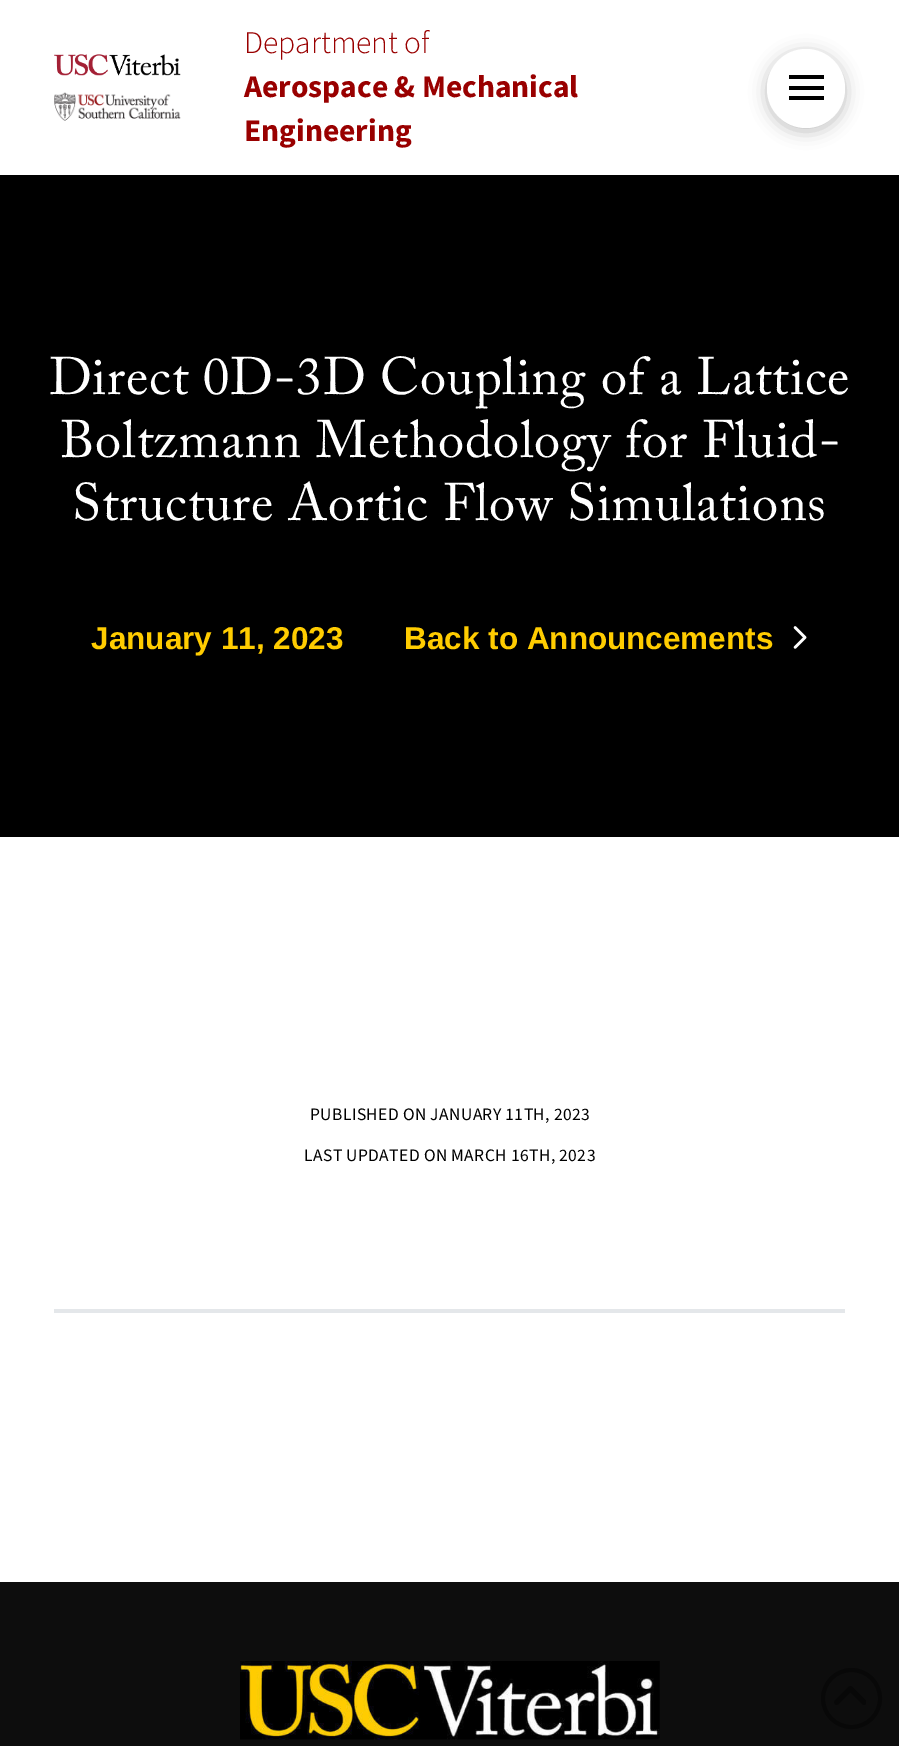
%!PS-Adobe-3.0
%%BoundingBox: 0 0 899 1746
%%LanguageLevel: 3
%%Pages: 1
%%EndComments
%%BeginProlog
/setink { 3 { 255 div 3 1 roll } repeat setrgbcolor } def
/usefont { [ exch dup neg 0 0 3 -1 roll 0 0 ] selectfont } def
/drawtext { setink usefont moveto show } def
/fillbox { setink rectfill } def
/setalpha { dup .setfillconstantalpha .setstrokeconstantalpha } def
/disc { newpath 0 360 arc closepath } def
/rrect { 5 dict begin { /r /h /w /y /x } { exch def } forall
  x r add y moveto x w add y 2 copy h add r arct x w add y h add x 1 index r arct
  x y h add x y r arct x y 2 copy exch w add exch r arct closepath end } def
/softshadow { 12 dict begin { /a /b /q /h /w /y /x } { exch def } forall gsave /was 0 def
  9 -2 -9 { dup b mul 4 div /e exch def 1 sub .425 mul 2.718 exch exp 1 add a .99 .min exch div /now exch def
    1 1 now sub 1 was sub div sub setalpha /was now def
    w h .min e 2 mul add 0 gt { x e sub y e sub w e 2 mul add h e 2 mul add
      q e add b .6 mul add w h .min 2 div e add .min 0 .max rrect fill } if } for grestore end } def
/drawimage { 5 dict begin { /h /w /y /x /name } { exch def } forall
  gsave x y translate w h scale
  w h 8 [w 0 0 h 0 0] name (r) file false 3 colorimage grestore end } def
%%EndProlog
%%BeginSetup
<< /PageSize [899 1746] /PageUsesTransparency true >> setpagedevice
%%EndSetup
%%Page: 1 1
0 .pushpdf14devicefilter
0 1746 translate 1 -1 scale
4 setmiterlimit
0 0 899 1746 255 255 255 fillbox
(assets/img1.rgb) 54 54 127 22 drawimage
(assets/img2.rgb) 54 92 127 29 drawimage
(Department of) 244 53 /SourceSans3-Light 31.5 153 0 0 drawtext
(Aerospace & Mechanical) 244 97 /SourceSans3-Bold 31.5 153 0 0 drawtext
(Engineering) 244 141 /SourceSans3-Bold 31.5 153 0 0 drawtext
0 0 0 setink
767 53 78 78 39 8.5 0.25 softshadow
255 255 255 setink
767 49 78 79 39 rrect fill
789 75 35 4 0 0 0 fillbox
789 86 35 4 0 0 0 fillbox
789 96 35 4 0 0 0 fillbox
0 175 899 662 0 0 0 fillbox
/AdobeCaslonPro-Regular 52.5 usefont
255 255 255 setink
49 394 moveto 0.8 0 (Direct 0D-3D Coupling of a Lattice) ashow
60 457 moveto 0.8 0 (Boltzmann Methodology for Fluid-) ashow
72 520 moveto 0.8 0 (Structure Aortic Flow Simulations) ashow
(January 11, 2023) 91 649 /LiberationSans-Bold 31.5 255 204 0 drawtext
(Back to Announcements) 404 649 /LiberationSans-Bold 31.5 255 204 0 drawtext
(assets/img3.rgb) 793 626 14 23 drawimage
/SourceSans3-Regular 17.5 usefont
0 0 0 setink
310 1120 moveto 0.4 0 (PUBLISHED ON JANUARY 11TH, 2023) ashow
304 1161 moveto 0.4 0 (LAST UPDATED ON MARCH 16TH, 2023) ashow
54 1309 791 4 228 231 234 fillbox
0 1582 899 164 13 13 13 fillbox
(assets/img4.rgb) 240 1661 420 79 drawimage
8 8 8 setink
4 setlinewidth
851.5 1698.5 28.5 disc stroke
(assets/img5.rgb) 834 1686 32 19 drawimage
.poppdf14devicefilter showpage
%%EOF
